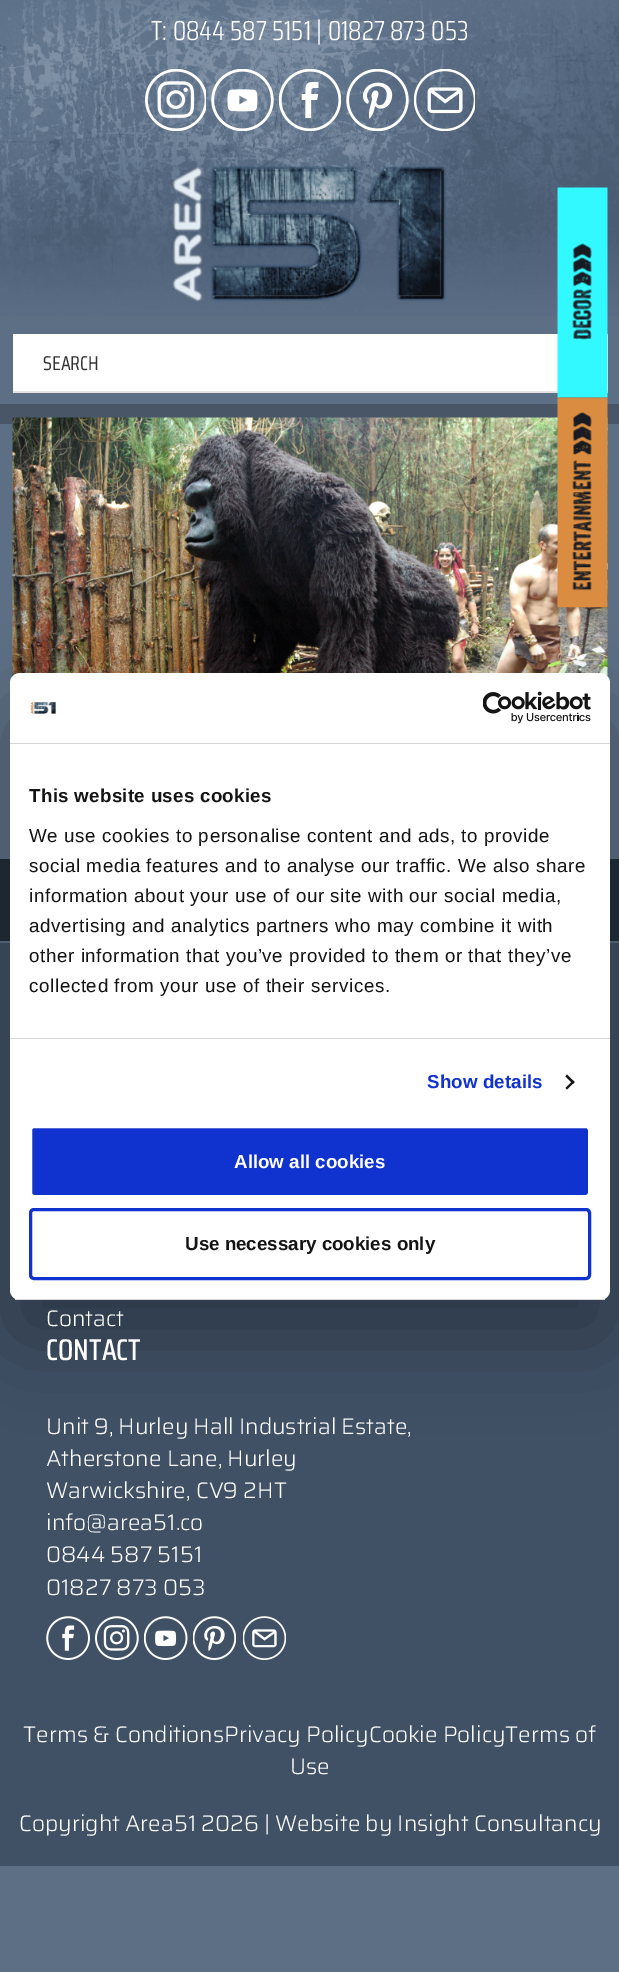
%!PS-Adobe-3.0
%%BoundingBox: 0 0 619 1972
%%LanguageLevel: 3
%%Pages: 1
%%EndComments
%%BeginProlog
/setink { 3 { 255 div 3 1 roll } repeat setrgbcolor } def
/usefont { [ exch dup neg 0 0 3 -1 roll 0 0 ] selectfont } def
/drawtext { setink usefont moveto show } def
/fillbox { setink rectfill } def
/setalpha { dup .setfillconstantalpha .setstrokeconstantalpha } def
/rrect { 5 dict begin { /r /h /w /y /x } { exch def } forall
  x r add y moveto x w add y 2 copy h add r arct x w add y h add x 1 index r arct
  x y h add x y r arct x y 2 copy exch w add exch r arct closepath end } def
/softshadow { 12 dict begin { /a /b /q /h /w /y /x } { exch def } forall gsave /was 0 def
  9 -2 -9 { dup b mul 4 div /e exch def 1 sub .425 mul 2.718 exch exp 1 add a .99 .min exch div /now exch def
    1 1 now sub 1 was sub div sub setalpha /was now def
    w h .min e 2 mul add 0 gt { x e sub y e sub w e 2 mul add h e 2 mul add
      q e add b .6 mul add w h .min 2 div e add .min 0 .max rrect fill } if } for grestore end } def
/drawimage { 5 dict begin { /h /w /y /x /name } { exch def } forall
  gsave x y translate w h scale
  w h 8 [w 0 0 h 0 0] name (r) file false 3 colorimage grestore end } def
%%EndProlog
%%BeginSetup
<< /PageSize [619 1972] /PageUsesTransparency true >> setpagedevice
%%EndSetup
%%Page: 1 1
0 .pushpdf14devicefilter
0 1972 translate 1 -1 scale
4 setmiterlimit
0 0 619 1972 93 111 133 fillbox
(assets/img1.rgb) 0 0 619 316 drawimage
(T: 0844 587 5151 | 01827 873 053) 151 40 /SairaCondensed-Light 27.5 255 255 255 drawtext
(assets/img2.rgb) 145 69 61 62 drawimage
(assets/img3.rgb) 211 69 63 62 drawimage
(assets/img4.rgb) 279 69 62 62 drawimage
(assets/img5.rgb) 346 69 63 62 drawimage
(assets/img6.rgb) 414 69 61 62 drawimage
(assets/img7.rgb) 172 166 274 136 drawimage
228 228 228 setink
13 391 moveto 13 393 lineto 608 393 lineto 608 335 lineto 608 391 lineto closepath fill
13 334 595 57 255 255 255 fillbox
(SEARCH) 43 370 /SairaCondensed-Regular 20 51 51 51 drawtext
0 404 619 20 72 86 103 fillbox
(assets/img8.rgb) 12 417 596 260 drawimage
(assets/img9.rgb) 557 187 51 211 drawimage
(assets/img10.rgb) 557 397 51 211 drawimage
0 859 619 82 33 46 58 fillbox
0 943 619 923 64 81 101 fillbox
0 0 0 setink
10 713 600 627 10 42.5 0.3 softshadow
255 255 255 setink
10 673 600 627 10 rrect fill
10 743 600 1 214 214 214 fillbox
(assets/img11.rgb) 30 702 26 12 drawimage
(assets/img12.rgb) 483 691 108 33 drawimage
10 1038 600 1 214 214 214 fillbox
/LiberationSans-Bold 18.75 usefont
20 20 20 setink
29 802 moveto 0.3 0 (This website uses cookies) ashow
/LiberationSans-Regular 18.75 usefont
29 842 moveto 0.62 0 (We use cookies to personalise content and ads, to provide) ashow
29 872 moveto 0.62 0 (social media features and to analyse our traffic. We also share) ashow
29 902 moveto 0.62 0 (information about your use of our site with our social media,) ashow
29 932 moveto 0.62 0 (advertising and analytics partners who may combine it with) ashow
29 962 moveto 0.62 0 (other information that you’ve provided to them or that they’ve) ashow
29 992 moveto 0.62 0 (collected from your use of their services.) ashow
/LiberationSans-Bold 18.75 usefont
16 50 207 setink
427 1088 moveto 0.1 0 (Show details) ashow
20 20 20 setink
567 1074.5 moveto 574.5 1082 lineto 573 1084 lineto 565.5 1076.5 lineto closepath fill
573 1080.5 moveto 574.5 1082 lineto 567 1089.5 lineto 565.5 1088 lineto closepath fill
gsave
10 673 600 627 10 rrect clip newpath
10 1299 600 1 214 214 214 fillbox
grestore
16 50 207 setink
30.5 1126.5 559 70 3.5 rrect gsave fill grestore
255 255 255 setink
3 setlinewidth
stroke
(Allow all cookies) 234 1168 /LiberationSans-Bold 18.75 255 255 255 drawtext
16 50 207 setink
30.5 1209.5 559 69 3.5 rrect stroke
(Use necessary cookies only) 185 1250 /LiberationSans-Bold 18.75 20 20 20 drawtext
(Contact) 46 1326 /Saira-Light 22.5 255 255 255 drawtext
(CONTACT) 46 1360 /SairaCondensed-Medium 30 255 255 255 drawtext
(Unit 9, Hurley Hall Industrial Estate,) 46 1434 /Saira-Light 22.5 255 255 255 drawtext
(Atherstone Lane, Hurley) 46 1466 /Saira-Light 22.5 255 255 255 drawtext
(Warwickshire, CV9 2HT) 46 1498 /Saira-Light 22.5 255 255 255 drawtext
(info@area51.co) 46 1530 /Saira-Light 22.5 255 255 255 drawtext
(0844 587 5151) 46 1562 /Saira-Light 22.5 255 255 255 drawtext
(01827 873 053) 46 1595 /Saira-Light 22.5 255 255 255 drawtext
(assets/img13.rgb) 46 1616 44 44 drawimage
(assets/img14.rgb) 95 1616 44 44 drawimage
(assets/img15.rgb) 144 1616 44 44 drawimage
(assets/img16.rgb) 193 1616 43 44 drawimage
(assets/img17.rgb) 243 1616 43 44 drawimage
(Terms & ConditionsPrivacy PolicyCookie PolicyTerms of) 23 1742 /Saira-Light 22.5 255 255 255 drawtext
(Use) 290 1774 /Saira-Light 22.5 255 255 255 drawtext
(Copyright Area51 2026 | Website by Insight Consultancy) 19 1831 /Saira-Light 22.5 255 255 255 drawtext
.poppdf14devicefilter showpage
%%EOF
